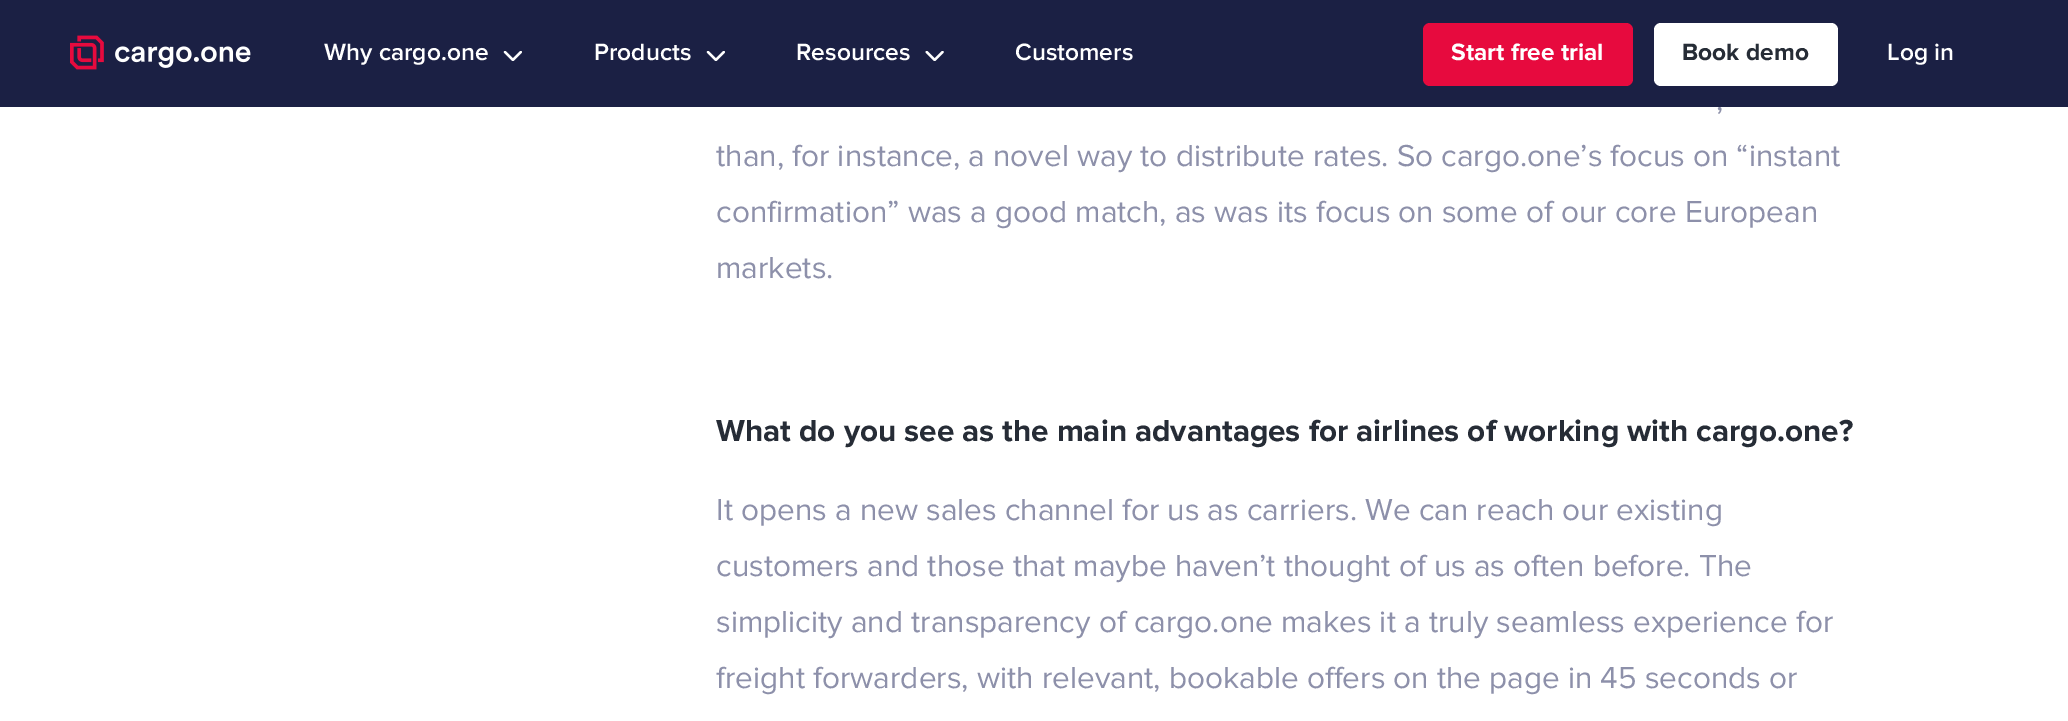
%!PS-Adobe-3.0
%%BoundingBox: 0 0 2068 721
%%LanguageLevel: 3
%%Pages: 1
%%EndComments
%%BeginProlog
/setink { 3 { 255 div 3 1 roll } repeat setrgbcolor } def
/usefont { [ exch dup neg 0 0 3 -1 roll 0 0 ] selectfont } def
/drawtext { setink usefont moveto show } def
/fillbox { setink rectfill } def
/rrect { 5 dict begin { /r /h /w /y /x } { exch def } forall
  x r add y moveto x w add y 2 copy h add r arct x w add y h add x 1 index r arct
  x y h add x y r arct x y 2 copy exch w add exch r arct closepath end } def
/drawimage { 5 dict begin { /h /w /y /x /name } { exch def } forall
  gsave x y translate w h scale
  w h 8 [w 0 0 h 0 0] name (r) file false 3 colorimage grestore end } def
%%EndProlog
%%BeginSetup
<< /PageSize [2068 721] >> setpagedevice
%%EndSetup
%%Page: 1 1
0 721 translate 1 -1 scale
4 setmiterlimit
0 0 2068 721 255 255 255 fillbox
(,) 1716 110 /ProximaNova-Regular 31.5 141 144 170 drawtext
0 0 2068 107 27 32 68 fillbox
(assets/img1.rgb) 70 35 181 35 drawimage
(Why cargo.one) 324 60 /ProximaNova-SemiBold 24.5 255 255 255 drawtext
(assets/img2.rgb) 503 51 19 10 drawimage
(Products) 594 60 /ProximaNova-SemiBold 24.5 255 255 255 drawtext
(assets/img2.rgb) 706 51 19 10 drawimage
(Resources) 796 60 /ProximaNova-SemiBold 24.5 255 255 255 drawtext
(assets/img3.rgb) 925 51 19 10 drawimage
(Customers) 1015 60 /ProximaNova-SemiBold 24.5 255 255 255 drawtext
231 10 62 setink
1423 23 210 63 7 rrect fill
(Start free trial) 1451 60 /ProximaNova-Bold 24.5 255 255 255 drawtext
1654 23 184 63 7 rrect fill
(Book demo) 1682 60 /ProximaNova-Bold 24.5 38 44 54 drawtext
(Log in) 1887 60 /ProximaNova-SemiBold 24.5 255 255 255 drawtext
(than, for instance, a novel way to distribute rates. So cargo.one’s focus on “instant) 716 166 /ProximaNova-Regular 31.5 141 144 170 drawtext
(confirmation” was a good match, as was its focus on some of our core European) 716 222 /ProximaNova-Regular 31.5 141 144 170 drawtext
(markets.) 716 278 /ProximaNova-Regular 31.5 141 144 170 drawtext
(What do you see as the main advantages for airlines of working with cargo.one?) 716 441 /ProximaNova-Bold 31.5 38 44 54 drawtext
(It opens a new sales channel for us as carriers. We can reach our existing) 716 520 /ProximaNova-Regular 31.5 141 144 170 drawtext
(customers and those that maybe haven’t thought of us as often before. The) 716 576 /ProximaNova-Regular 31.5 141 144 170 drawtext
(simplicity and transparency of cargo.one makes it a truly seamless experience for) 716 632 /ProximaNova-Regular 31.5 141 144 170 drawtext
(freight forwarders, with relevant, bookable offers on the page in 45 seconds or) 716 688 /ProximaNova-Regular 31.5 141 144 170 drawtext
showpage
%%EOF
